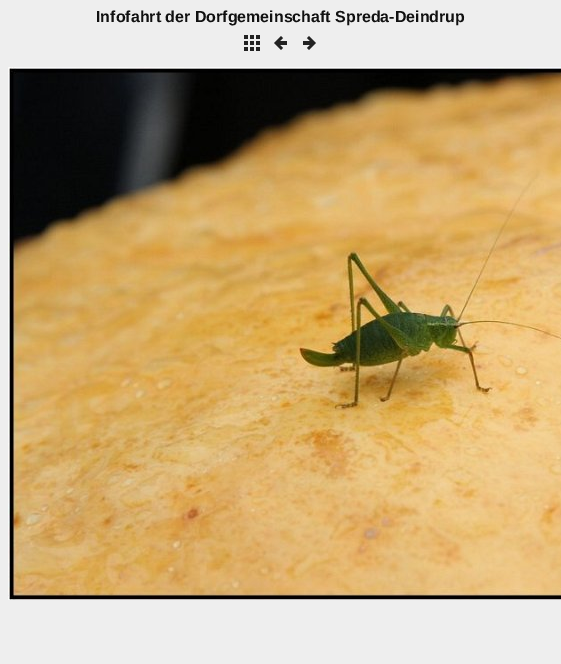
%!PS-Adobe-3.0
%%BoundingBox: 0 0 561 664
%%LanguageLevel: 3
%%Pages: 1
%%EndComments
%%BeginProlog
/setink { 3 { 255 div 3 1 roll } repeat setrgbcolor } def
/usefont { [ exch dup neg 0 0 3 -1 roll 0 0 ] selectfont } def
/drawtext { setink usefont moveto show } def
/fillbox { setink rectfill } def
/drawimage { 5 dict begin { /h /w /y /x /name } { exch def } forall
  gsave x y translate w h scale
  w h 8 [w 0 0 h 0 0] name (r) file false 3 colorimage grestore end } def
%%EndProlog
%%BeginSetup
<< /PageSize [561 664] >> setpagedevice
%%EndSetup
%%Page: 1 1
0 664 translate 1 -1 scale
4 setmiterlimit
0 0 561 664 238 238 238 fillbox
(Infofahrt der Dorfgemeinschaft Spreda-Deindrup) 96 22 /LiberationSans-Bold 16 17 17 17 drawtext
(assets/img1.rgb) 244 35 16 16 drawimage
(assets/img2.rgb) 274 36 13 14 drawimage
(assets/img3.rgb) 303 36 13 14 drawimage
(assets/img4.rgb) 8 67 553 533 drawimage
showpage
%%EOF
